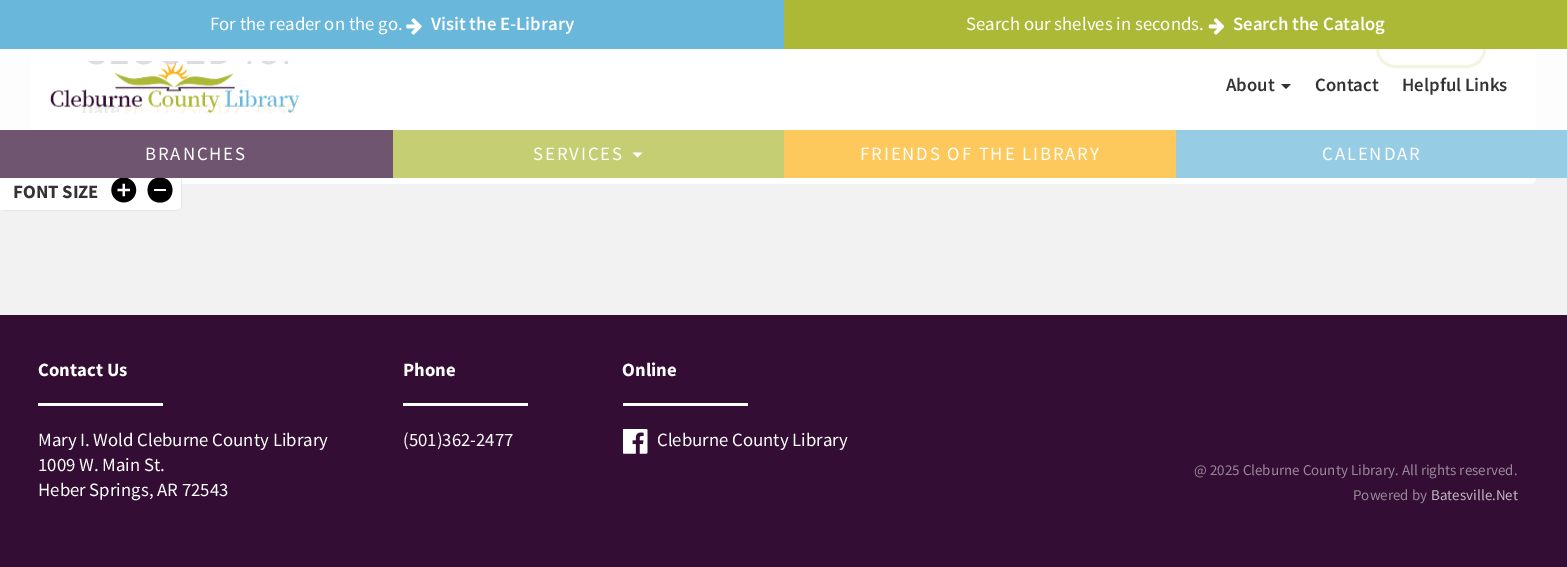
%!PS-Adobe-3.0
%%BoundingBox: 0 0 1567 567
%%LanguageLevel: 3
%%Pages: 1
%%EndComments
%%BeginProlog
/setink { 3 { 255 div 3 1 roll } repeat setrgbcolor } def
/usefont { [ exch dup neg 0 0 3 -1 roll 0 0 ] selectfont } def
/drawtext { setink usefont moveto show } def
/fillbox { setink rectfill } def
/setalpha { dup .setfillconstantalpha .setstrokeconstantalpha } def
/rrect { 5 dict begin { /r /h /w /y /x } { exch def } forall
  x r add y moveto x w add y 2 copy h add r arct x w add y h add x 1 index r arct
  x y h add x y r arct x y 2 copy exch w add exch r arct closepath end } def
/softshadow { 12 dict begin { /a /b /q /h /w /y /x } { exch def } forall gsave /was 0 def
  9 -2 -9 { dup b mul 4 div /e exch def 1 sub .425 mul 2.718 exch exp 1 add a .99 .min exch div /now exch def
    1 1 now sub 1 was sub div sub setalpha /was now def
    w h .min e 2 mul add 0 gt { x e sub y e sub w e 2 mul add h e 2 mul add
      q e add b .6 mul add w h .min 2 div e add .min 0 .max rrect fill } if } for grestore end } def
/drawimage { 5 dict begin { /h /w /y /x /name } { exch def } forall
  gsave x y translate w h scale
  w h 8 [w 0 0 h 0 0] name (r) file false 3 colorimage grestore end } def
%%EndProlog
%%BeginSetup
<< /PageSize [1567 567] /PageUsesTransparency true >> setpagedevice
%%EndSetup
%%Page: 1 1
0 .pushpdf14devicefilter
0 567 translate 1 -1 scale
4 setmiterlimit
0 0 1567 567 242 242 242 fillbox
255 255 255 setink
31 -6 1505 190 6 rrect fill
172 185 55 setink
3 setlinewidth
1377.5 25.5 107 41 17.5 rrect stroke
204 204 204 setink
0 168 181 42 5 1 1 softshadow
255 255 255 setink
0 168 moveto 176 168 lineto 179 168 181 170 181 173 curveto 181 205 lineto 181 208 179 210 176 210 curveto 0 210 lineto closepath fill
(assets/img4.rgb) 111 177 26 26 drawimage
0 0 0 setink
160 177.5 moveto 143.5 177.5 143.5 202.5 160 202.5 curveto 176.5 202.5 176.5 177.5 160 177.5 curveto closepath 166 191 moveto 154 191 lineto 154 189 lineto 166 189 lineto closepath fill
0.85 setalpha
0 49 1567 129 255 255 255 fillbox
1 setalpha
0 0 784 49 105 183 218 fillbox
(For the reader on the go.) 210 30 /SourceSansPro-Regular 18.75 255 255 255 drawtext
(assets/img1.rgb) 406 18 16 17 drawimage
(Visit the E-Library) 431 30 /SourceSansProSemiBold-SemiBold 18.75 255 255 255 drawtext
784 0 783 49 172 185 55 fillbox
(Search our shelves in seconds.) 966 30 /SourceSansPro-Regular 18.75 255 255 255 drawtext
(assets/img2.rgb) 1208 18 17 17 drawimage
(Search the Catalog) 1233 30 /SourceSansProSemiBold-SemiBold 18.75 255 255 255 drawtext
(assets/img3.rgb) 50 61 250 52 drawimage
(About) 1226 91 /SourceSansProSemiBold-SemiBold 18.75 51 51 51 drawtext
1281 84 moveto 1291 84 lineto 1286 89 lineto closepath fill
(Contact) 1315 91 /SourceSansProSemiBold-SemiBold 18.75 51 51 51 drawtext
(Helpful Links) 1402 91 /SourceSansProSemiBold-SemiBold 18.75 51 51 51 drawtext
0.7 setalpha
0 130 393 48 51 13 52 fillbox
/SourceSansPro-Regular 18.75 usefont
1 setalpha
255 255 255 setink
145 160 moveto 1.9 0 (BRANCHES) ashow
393 130 391 48 197 206 115 fillbox
255 255 255 setink
533 160 moveto 1.9 0 (SERVICES) ashow
632.5 152.5 moveto 642.5 152.5 lineto 637.5 157.5 lineto closepath fill
784 130 392 48 253 201 93 fillbox
255 255 255 setink
860 160 moveto 1.9 0 (FRIENDS OF THE LIBRARY) ashow
1176 130 391 48 150 205 229 fillbox
255 255 255 setink
1322 160 moveto 1.9 0 (CALENDAR) ashow
(FONT SIZE) 13 198 /SourceSansPro-Bold 18.75 51 51 51 drawtext
0 315 1567 252 51 13 52 fillbox
(Contact Us) 38 376 /SourceSansPro-Bold 18.75 255 255 255 drawtext
38 403 125 3 255 255 255 fillbox
(Mary I. Wold Cleburne County Library) 38 446 /SourceSansPro-Regular 18.75 255 255 255 drawtext
(1009 W. Main St.) 38 471 /SourceSansPro-Regular 18.75 255 255 255 drawtext
(Heber Springs, AR 72543) 38 496 /SourceSansPro-Regular 18.75 255 255 255 drawtext
(Phone) 403 376 /SourceSansPro-Bold 18.75 255 255 255 drawtext
403 403 125 3 255 255 255 fillbox
(\(501\)362-2477) 403 446 /SourceSansPro-Regular 18.75 255 255 255 drawtext
(Online) 622 376 /SourceSansPro-Bold 18.75 255 255 255 drawtext
623 403 125 3 255 255 255 fillbox
(assets/img5.rgb) 623 429 25 25 drawimage
(Cleburne County Library) 657 446 /SourceSansPro-Regular 18.75 255 255 255 drawtext
(@ 2025 Cleburne County Library. All rights reserved.) 1194 475 /SourceSansPro-Regular 15 153 134 154 drawtext
(Powered by) 1353 500 /SourceSansPro-Regular 15 153 134 154 drawtext
(Batesville.Net) 1431 500 /SourceSansPro-Regular 15 194 182 194 drawtext
.poppdf14devicefilter showpage
%%EOF
